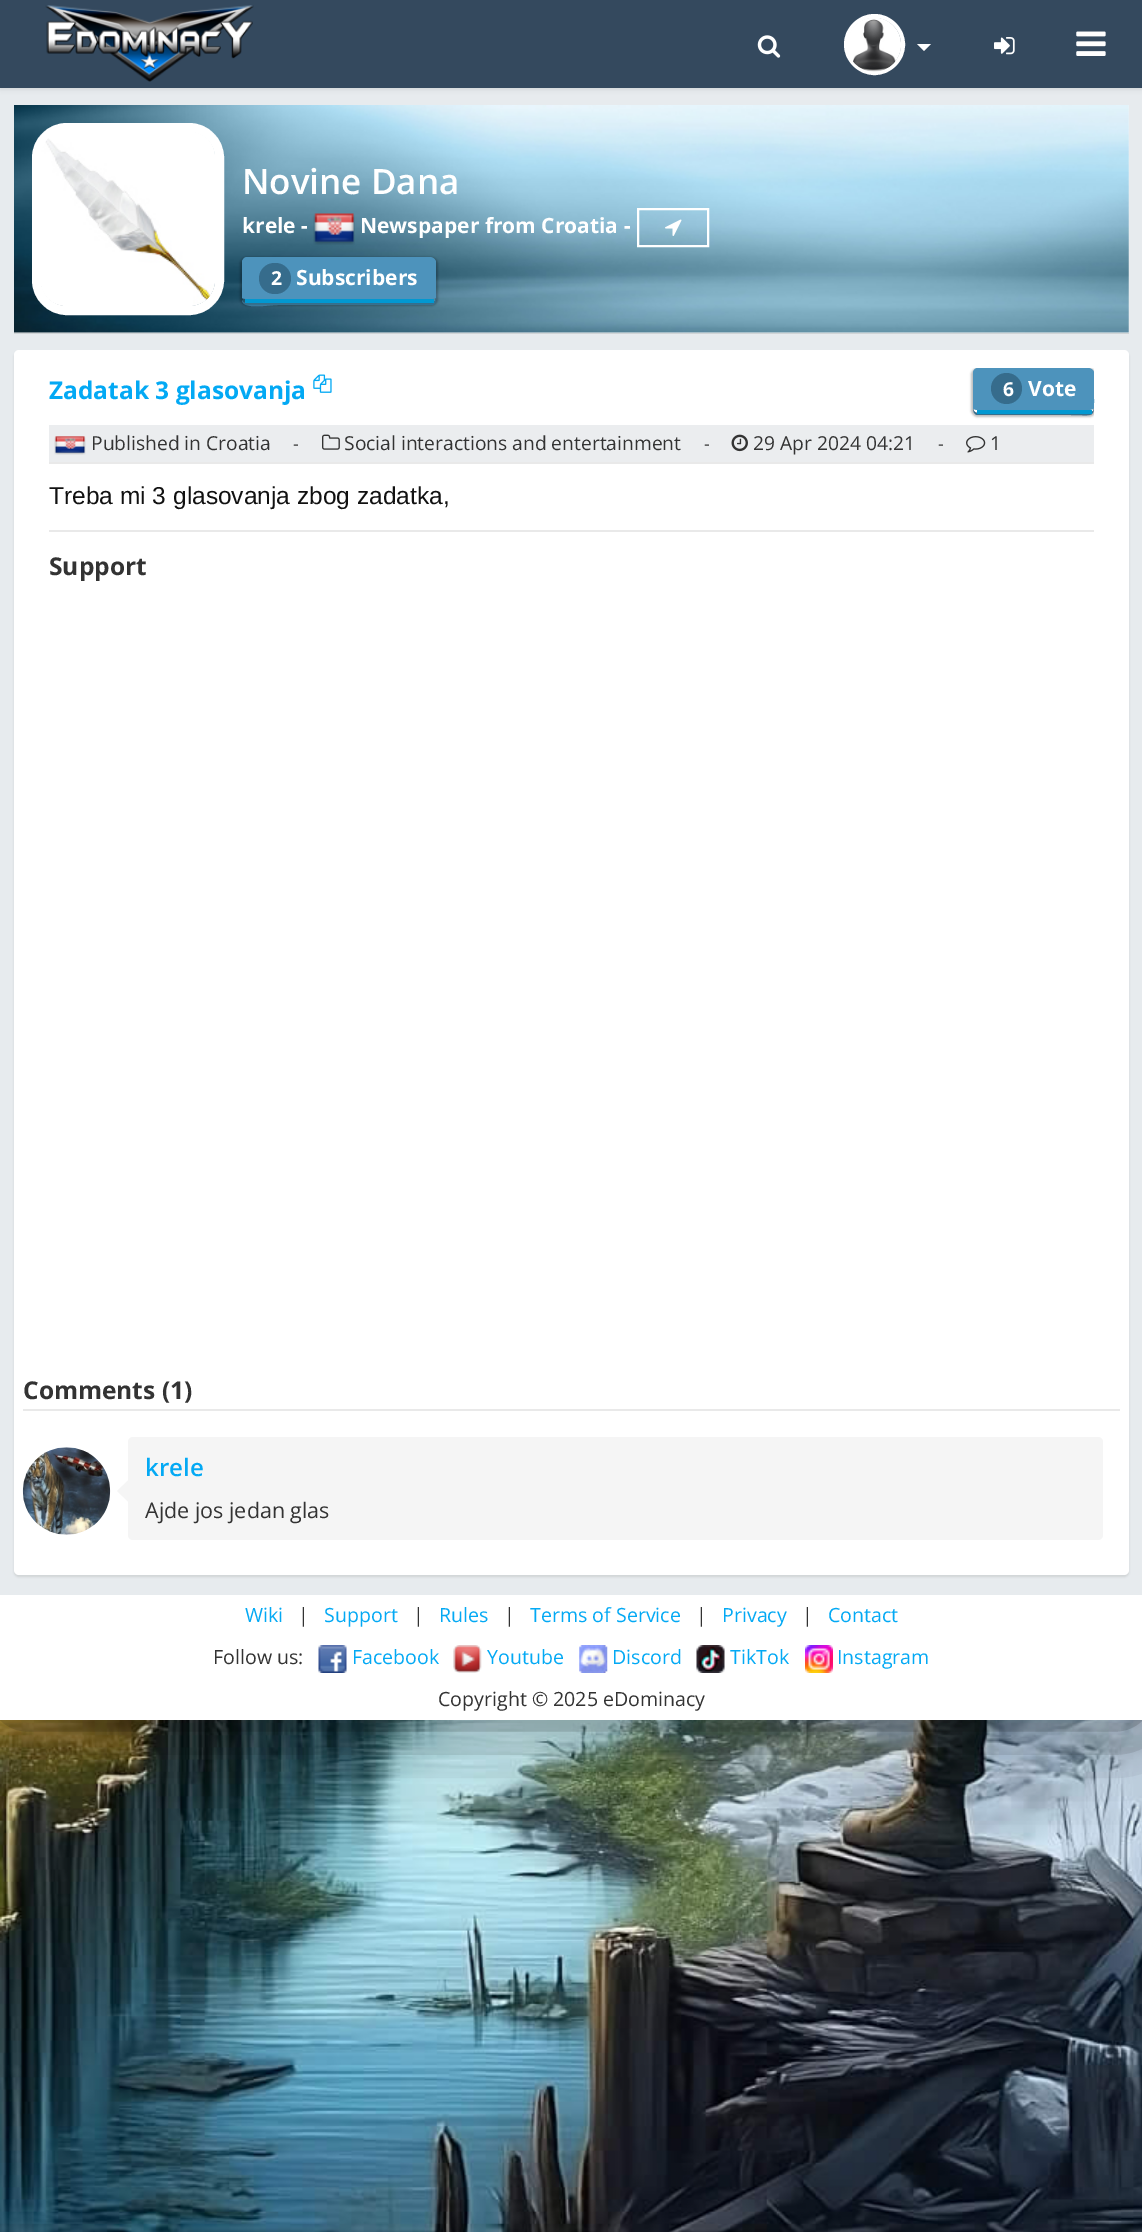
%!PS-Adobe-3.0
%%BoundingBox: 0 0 1142 2232
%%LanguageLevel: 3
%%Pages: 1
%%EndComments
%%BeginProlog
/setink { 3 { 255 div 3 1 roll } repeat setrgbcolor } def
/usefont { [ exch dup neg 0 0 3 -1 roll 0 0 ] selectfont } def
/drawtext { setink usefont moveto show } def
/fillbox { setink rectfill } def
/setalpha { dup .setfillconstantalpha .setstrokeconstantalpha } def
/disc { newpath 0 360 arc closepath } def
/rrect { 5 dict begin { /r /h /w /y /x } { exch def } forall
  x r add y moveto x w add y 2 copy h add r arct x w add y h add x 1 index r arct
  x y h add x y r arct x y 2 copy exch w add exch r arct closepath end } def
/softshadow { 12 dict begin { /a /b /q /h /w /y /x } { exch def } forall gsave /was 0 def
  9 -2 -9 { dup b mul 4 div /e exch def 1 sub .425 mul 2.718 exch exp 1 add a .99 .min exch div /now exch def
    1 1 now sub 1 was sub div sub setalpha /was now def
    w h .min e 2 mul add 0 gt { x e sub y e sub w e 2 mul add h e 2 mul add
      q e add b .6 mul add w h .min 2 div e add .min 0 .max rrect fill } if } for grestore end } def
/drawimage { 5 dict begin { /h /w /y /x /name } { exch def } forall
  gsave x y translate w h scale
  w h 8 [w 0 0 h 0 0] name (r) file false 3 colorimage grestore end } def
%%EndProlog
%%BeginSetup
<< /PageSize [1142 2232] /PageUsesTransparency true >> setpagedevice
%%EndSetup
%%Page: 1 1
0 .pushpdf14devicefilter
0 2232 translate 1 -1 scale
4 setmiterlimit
0 0 1142 2232 255 255 255 fillbox
(assets/img1.rgb) 0 1720 1142 512 drawimage
0 0 0 setink
0 0 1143 1720 0 46.5 0.55 softshadow
0 88 1142 1507 231 235 238 fillbox
0 0 0 setink
0 2 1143 87 0 2.5 0.1 softshadow
0 0 1142 88 52 73 94 fillbox
(assets/img2.rgb) 45 5 209 77 drawimage
(assets/img3.rgb) 757 35 24 23 drawimage
255 255 255 setink
4 setlinewidth
874.5 44.5 28.5 disc stroke
(assets/img4.rgb) 848 18 53 54 drawimage
917 44 moveto 931 44 lineto 924 51 lineto closepath fill
(assets/img5.rgb) 994 37 21 18 drawimage
(assets/img6.rgb) 1076 31 30 25 drawimage
208 212 214 setink
14 332 moveto 14 334 lineto 1129 334 lineto 1129 107 lineto 1129 332 lineto closepath fill
14 105 1115 228 245 245 245 fillbox
(assets/img7.rgb) 14 105 1115 228 drawimage
255 255 255 setink
9 setlinewidth
36.5 127.5 183 183 30.5 rrect stroke
(assets/img8.rgb) 41 132 174 174 drawimage
(Novine Dana) 242 194 /OpenSans-SemiBold 35 255 255 255 drawtext
(krele -) 242 233 /OpenSans-Bold 21 255 255 255 drawtext
(assets/img9.rgb) 313 213 42 32 drawimage
(Newspaper from Croatia -) 360 233 /OpenSans-Bold 21 255 255 255 drawtext
2 setlinewidth
638 209 70 37 rectstroke
(assets/img10.rgb) 665 219 17 17 drawimage
73 145 187 setink
242 300 moveto 242 310 268 305 278 305 curveto 431 305 lineto 437 305 436 298 436 294 curveto 436 262 lineto 436 298 lineto 436 300 433 303 430 303 curveto 247 303 lineto 245 303 243 302 242 300 curveto closepath fill
gsave
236 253 moveto 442 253 lineto 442 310 lineto 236 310 lineto closepath 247 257 moveto 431 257 lineto 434 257 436 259 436 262 curveto 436 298 lineto 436 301 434 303 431 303 curveto 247 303 lineto 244 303 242 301 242 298 curveto 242 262 lineto 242 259 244 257 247 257 curveto closepath eoclip newpath
0 0 0 setink
240 257 198 49 7 1 0.25 softshadow
grestore
77 147 188 setink
247 257 moveto 430 257 lineto 433 257 436 260 436 262 curveto 436 298 lineto 436 298 433 299 430 299 curveto 247 299 lineto 244 299 242 298 242 298 curveto 242 262 lineto 242 260 244 257 247 257 curveto closepath fill
245 299 189 4 2 152 209 fillbox
54 108 140 setink
259 263 32 31 15.5 rrect fill
(2) 271 285 /OpenSans-Bold 19.25 255 255 255 drawtext
(Subscribers) 296 285 /OpenSans-Bold 21 255 255 255 drawtext
0 0 0 setink
14 352 1115 1225 5 1 0.1 softshadow
255 255 255 setink
14 350 1115 1225 5 rrect fill
(Zadatak 3 glasovanja) 49 399 /OpenSans-Bold 24.5 3 169 244 drawtext
(assets/img11.rgb) 313 374 19 19 drawimage
73 145 187 setink
973 408 moveto 973 411 974 415 978 415 curveto 1070 415 lineto 1095 415 1094 419 1094 398 curveto 1094 372 lineto 1094 409 lineto 1092 417 1070 413 1070 413 curveto 997 413 lineto 996 413 973 418 973 408 curveto closepath fill
gsave
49 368 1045 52 rectclip
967 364 moveto 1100 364 lineto 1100 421 lineto 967 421 lineto closepath 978 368 moveto 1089 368 lineto 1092 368 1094 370 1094 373 curveto 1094 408 lineto 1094 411 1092 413 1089 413 curveto 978 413 lineto 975 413 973 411 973 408 curveto 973 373 lineto 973 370 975 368 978 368 curveto closepath eoclip newpath
0 0 0 setink
971 368 125 49 7 1 0.25 softshadow
grestore
77 147 188 setink
978 368 moveto 1088 368 lineto 1091 368 1094 370 1094 373 curveto 1094 408 lineto 1094 409 1091 410 1088 410 curveto 978 410 lineto 975 410 973 409 973 408 curveto 973 373 lineto 973 370 975 368 978 368 curveto closepath fill
977 410 115 4 2 152 209 fillbox
54 108 140 setink
1006.5 388.5 15.5 disc fill
(6) 1003 396 /OpenSans-Bold 19.25 255 255 255 drawtext
(Vote) 1028 396 /OpenSans-Bold 21 255 255 255 drawtext
49 425 1045 37 235 237 239 fillbox
49 462 1045 2 233 233 233 fillbox
(assets/img12.rgb) 54 436 32 19 drawimage
(Published in Croatia) 91 450 /OpenSans-Regular 19.25 51 51 51 drawtext
(-) 293 450 /OpenSans-Regular 18 51 51 51 drawtext
(assets/img13.rgb) 322 434 18 16 drawimage
(Social interactions and entertainment) 344 450 /OpenSans-Regular 19.25 51 51 51 drawtext
(-) 704 450 /OpenSans-Regular 18 51 51 51 drawtext
(assets/img14.rgb) 731 434 17 18 drawimage
(29 Apr 2024 04:21) 753 450 /OpenSans-Regular 19.25 51 51 51 drawtext
(-) 938 450 /OpenSans-Regular 18 51 51 51 drawtext
(assets/img15.rgb) 966 436 20 17 drawimage
(1) 990 450 /OpenSans-Regular 19.25 51 51 51 drawtext
49 530 1045 2 233 233 233 fillbox
(Treba mi 3 glasovanja zbog zadatka,) 49 504 /LiberationSans-Regular 24.5 17 17 17 drawtext
(Support) 49 575 /OpenSans-Bold 24.5 51 51 51 drawtext
23 1409 1097 2 233 233 233 fillbox
(Comments \(1\)) 23 1399 /OpenSans-Bold 24.5 51 51 51 drawtext
(assets/img16.rgb) 22 1447 89 88 drawimage
245 245 245 setink
128 1437 975 103 5 rrect fill
(krele) 145 1476 /OpenSans-SemiBold 24 3 169 244 drawtext
245 245 245 setink
128 1480.5 moveto 128 1501.5 lineto 117 1491 lineto closepath fill
(Ajde jos jedan glas) 145 1518 /OpenSans-Regular 21.5 51 51 51 drawtext
0 1595 1142 125 255 255 255 fillbox
(Wiki) 245 1622 /OpenSans-Regular 19.6 3 169 244 drawtext
(|) 298 1622 /OpenSans-Regular 19.6 51 51 51 drawtext
(Support) 324 1622 /OpenSans-Regular 19.6 3 169 244 drawtext
(|) 413 1622 /OpenSans-Regular 19.6 51 51 51 drawtext
(Rules) 439 1622 /OpenSans-Regular 19.6 3 169 244 drawtext
(|) 504 1622 /OpenSans-Regular 19.6 51 51 51 drawtext
(Terms of Service) 530 1622 /OpenSans-Regular 19.6 3 169 244 drawtext
(|) 696 1622 /OpenSans-Regular 19.6 51 51 51 drawtext
(Privacy) 722 1622 /OpenSans-Regular 19.6 3 169 244 drawtext
(|) 802 1622 /OpenSans-Regular 19.6 51 51 51 drawtext
(Contact) 828 1622 /OpenSans-Regular 19.6 3 169 244 drawtext
(Follow us:) 213 1664 /OpenSans-Regular 19.6 51 51 51 drawtext
(assets/img17.rgb) 318 1645 29 28 drawimage
(Facebook) 352 1664 /OpenSans-Regular 19.6 3 169 244 drawtext
(assets/img18.rgb) 453 1645 29 28 drawimage
(Youtube) 487 1664 /OpenSans-Regular 19.6 3 169 244 drawtext
(assets/img19.rgb) 579 1645 29 28 drawimage
(Discord) 612 1664 /OpenSans-Regular 19.6 3 169 244 drawtext
(assets/img20.rgb) 696 1645 29 28 drawimage
(TikTok) 730 1664 /OpenSans-Regular 19.6 3 169 244 drawtext
(assets/img21.rgb) 805 1645 28 28 drawimage
(Instagram) 837 1664 /OpenSans-Regular 19.6 3 169 244 drawtext
(Copyright © 2025 eDominacy) 438 1706 /OpenSans-Regular 19.6 51 51 51 drawtext
.poppdf14devicefilter showpage
%%EOF
